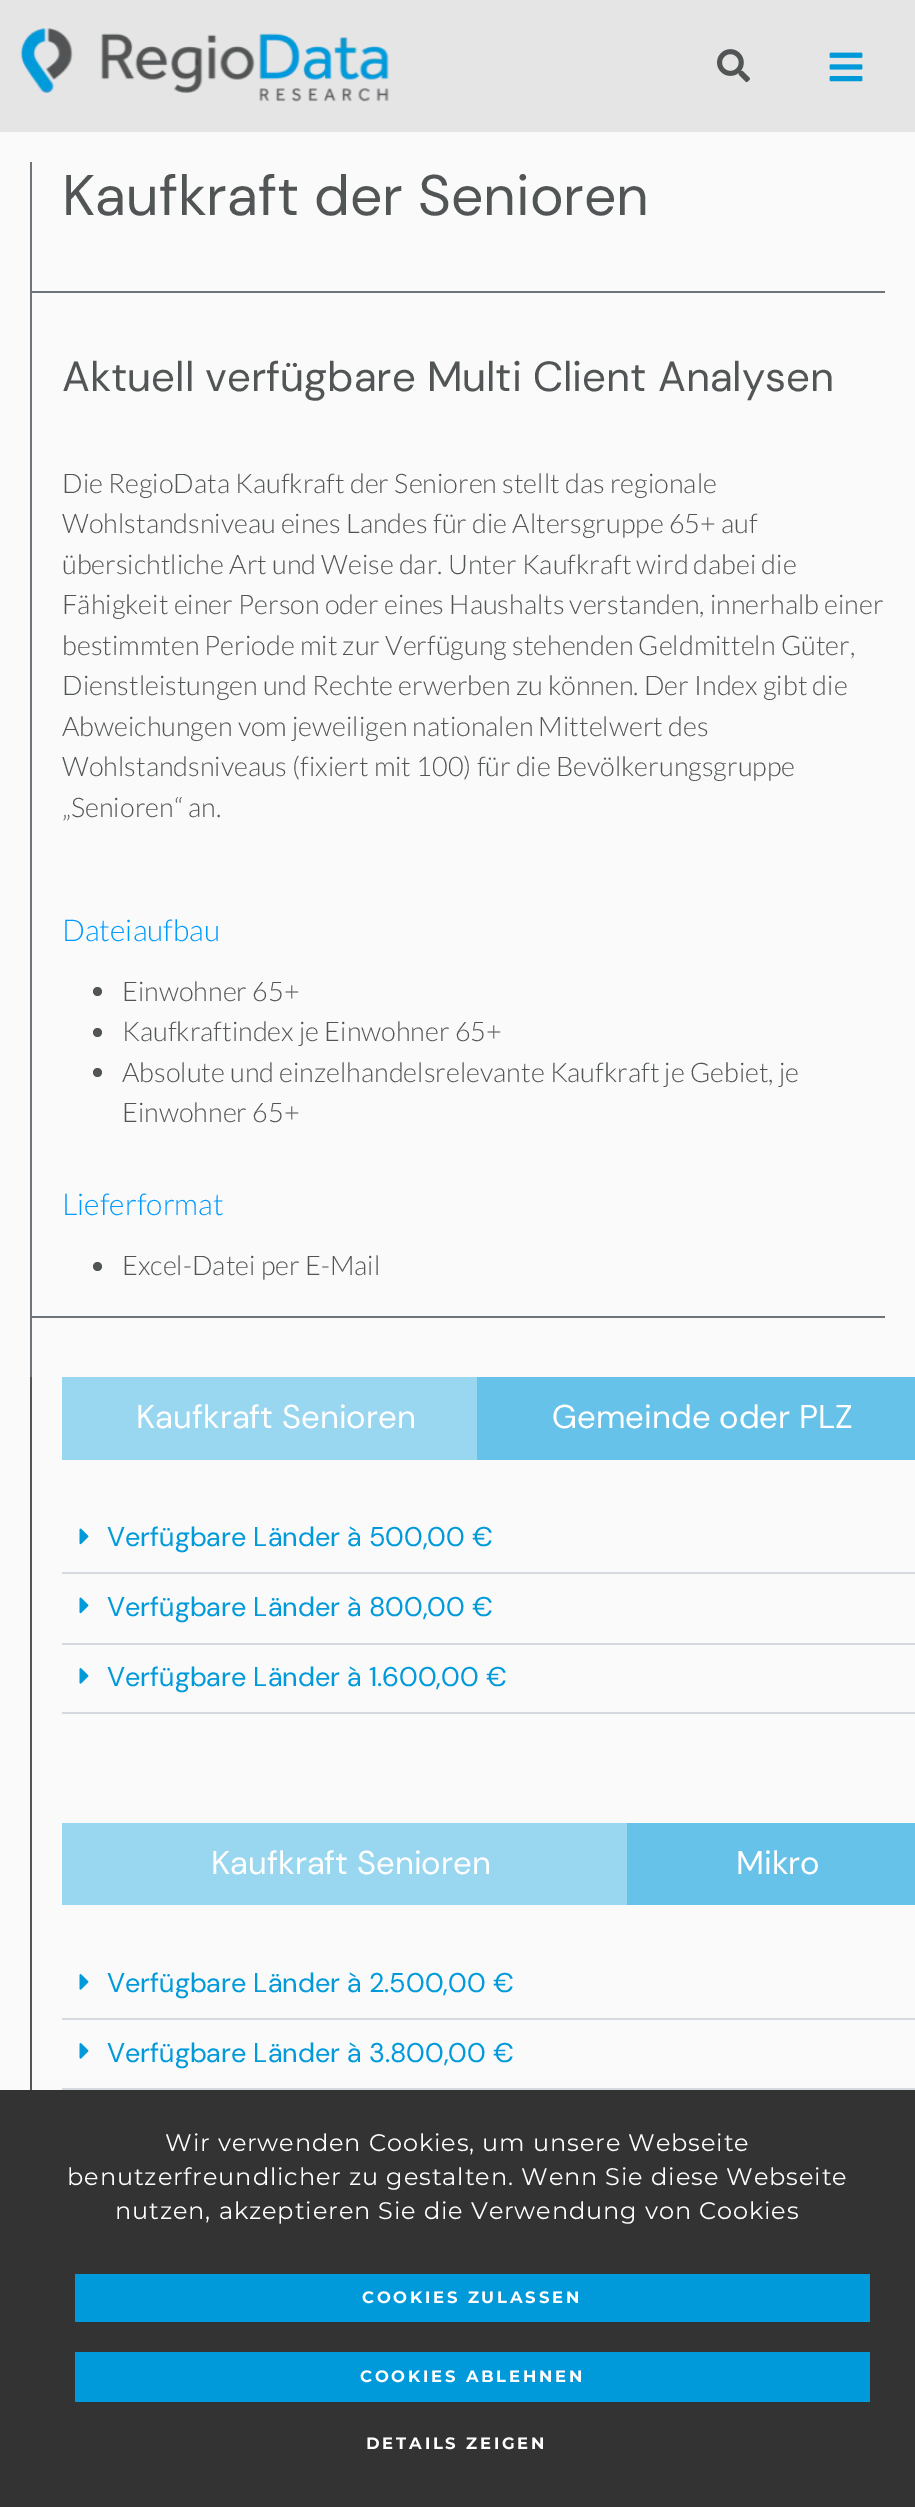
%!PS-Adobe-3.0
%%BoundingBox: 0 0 915 2507
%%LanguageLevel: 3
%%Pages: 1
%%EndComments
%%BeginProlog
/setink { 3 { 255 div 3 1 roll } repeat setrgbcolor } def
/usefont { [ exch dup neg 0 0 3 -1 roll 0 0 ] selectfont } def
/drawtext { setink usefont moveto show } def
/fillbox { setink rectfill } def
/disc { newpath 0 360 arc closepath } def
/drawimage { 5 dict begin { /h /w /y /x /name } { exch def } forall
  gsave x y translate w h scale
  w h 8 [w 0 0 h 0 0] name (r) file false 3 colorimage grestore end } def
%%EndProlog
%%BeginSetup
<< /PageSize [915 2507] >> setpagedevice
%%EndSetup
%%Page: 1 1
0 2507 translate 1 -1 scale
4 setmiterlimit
0 0 915 2507 250 250 250 fillbox
0 0 915 132 229 229 229 fillbox
(assets/img1.rgb) 20 28 369 74 drawimage
(assets/img2.rgb) 717 49 33 34 drawimage
(assets/img3.rgb) 829 52 34 30 drawimage
30 162 2 1215 110 116 120 fillbox
(Kaufkraft der Senioren) 62 215 /DMSans-Regular 57 82 85 86 drawtext
32 291 853 2 110 116 120 fillbox
(Aktuell verfügbare Multi Client Analysen) 62 391 /DMSans-Regular 42 82 85 86 drawtext
(Die RegioData Kaufkraft der Senioren stellt das regionale) 62 493 /Lato-Light 27 82 85 86 drawtext
(Wohlstandsniveau eines Landes für die Altersgruppe 65+ auf) 62 533 /Lato-Light 27 82 85 86 drawtext
(übersichtliche Art und Weise dar. Unter Kaufkraft wird dabei die) 62 574 /Lato-Light 27 82 85 86 drawtext
(Fähigkeit einer Person oder eines Haushalts verstanden, innerhalb einer) 62 614 /Lato-Light 27 82 85 86 drawtext
(bestimmten Periode mit zur Verfügung stehenden Geldmitteln Güter,) 62 655 /Lato-Light 27 82 85 86 drawtext
(Dienstleistungen und Rechte erwerben zu können. Der Index gibt die) 62 695 /Lato-Light 27 82 85 86 drawtext
(Abweichungen vom jeweiligen nationalen Mittelwert des) 62 736 /Lato-Light 27 82 85 86 drawtext
(Wohlstandsniveaus \(fixiert mit 100\) für die Bevölkerungsgruppe) 62 776 /Lato-Light 27 82 85 86 drawtext
(„Senioren“ an.) 62 817 /Lato-Light 27 82 85 86 drawtext
(Dateiaufbau) 62 941 /Lato-Light 30 0 154 255 drawtext
82 85 86 setink
97.5 991.5 4.5 disc fill
(Einwohner 65+) 122 1001 /Lato-Light 27 82 85 86 drawtext
97.5 1032.5 4.5 disc fill
(Kaufkraftindex je Einwohner 65+) 122 1041 /Lato-Light 27 82 85 86 drawtext
97.5 1072.5 4.5 disc fill
(Absolute und einzelhandelsrelevante Kaufkraft je Gebiet, je) 122 1082 /Lato-Light 27 82 85 86 drawtext
(Einwohner 65+) 122 1122 /Lato-Light 27 82 85 86 drawtext
(Lieferformat) 62 1215 /Lato-Light 30 0 154 255 drawtext
82 85 86 setink
97.5 1266.5 4.5 disc fill
(Excel-Datei per E-Mail) 122 1275 /Lato-Light 27 82 85 86 drawtext
32 1316 853 2 110 116 120 fillbox
30 1377 2 713 82 85 86 fillbox
62 1377 415 83 153 215 241 fillbox
(Kaufkraft Senioren) 136 1428 /DMSans-Regular 33 255 255 255 drawtext
477 1377 438 83 102 194 233 fillbox
(Gemeinde oder PLZ) 552 1428 /DMSans-Regular 33 255 255 255 drawtext
62 1572 853 2 213 216 220 fillbox
(assets/img4.rgb) 79 1528 10 17 drawimage
(Verfügbare Länder à 500,00 €) 107 1546 /DMSans-Regular 27 0 154 219 drawtext
62 1643 853 2 213 216 220 fillbox
(assets/img4.rgb) 79 1597 10 17 drawimage
(Verfügbare Länder à 800,00 €) 107 1616 /DMSans-Regular 27 0 154 219 drawtext
62 1712 853 2 213 216 220 fillbox
(assets/img5.rgb) 79 1668 10 16 drawimage
(Verfügbare Länder à 1.600,00 €) 107 1686 /DMSans-Regular 27 0 154 219 drawtext
62 1823 565 82 153 215 241 fillbox
(Kaufkraft Senioren) 211 1874 /DMSans-Regular 33 255 255 255 drawtext
627 1823 288 82 102 194 233 fillbox
(Mikro) 736 1874 /DMSans-Regular 33 255 255 255 drawtext
62 2018 853 2 213 216 220 fillbox
(assets/img5.rgb) 79 1974 10 16 drawimage
(Verfügbare Länder à 2.500,00 €) 107 1992 /DMSans-Regular 27 0 154 219 drawtext
62 2088 853 2 213 216 220 fillbox
(assets/img5.rgb) 79 2043 10 16 drawimage
(Verfügbare Länder à 3.800,00 €) 107 2062 /DMSans-Regular 27 0 154 219 drawtext
0 2090 915 417 51 51 51 fillbox
/Montserrat-Regular 24 usefont
255 255 255 setink
165 2151 moveto 0.9 0 (Wir verwenden Cookies, um unsere Webseite) ashow
67 2185 moveto 0.9 0 (benutzerfreundlicher zu gestalten. Wenn Sie diese Webseite) ashow
115 2219 moveto 0.9 0 (nutzen, akzeptieren Sie die Verwendung von Cookies) ashow
75 2274 795 48 0 154 219 fillbox
/Montserrat-Bold 16.5 usefont
255 255 255 setink
362 2303 moveto 2.75 0 (COOKIES ZULASSEN) ashow
75 2352 795 50 0 154 219 fillbox
255 255 255 setink
360 2382 moveto 2.75 0 (COOKIES ABLEHNEN) ashow
366 2449 moveto 2.75 0 (DETAILS ZEIGEN) ashow
showpage
%%EOF
